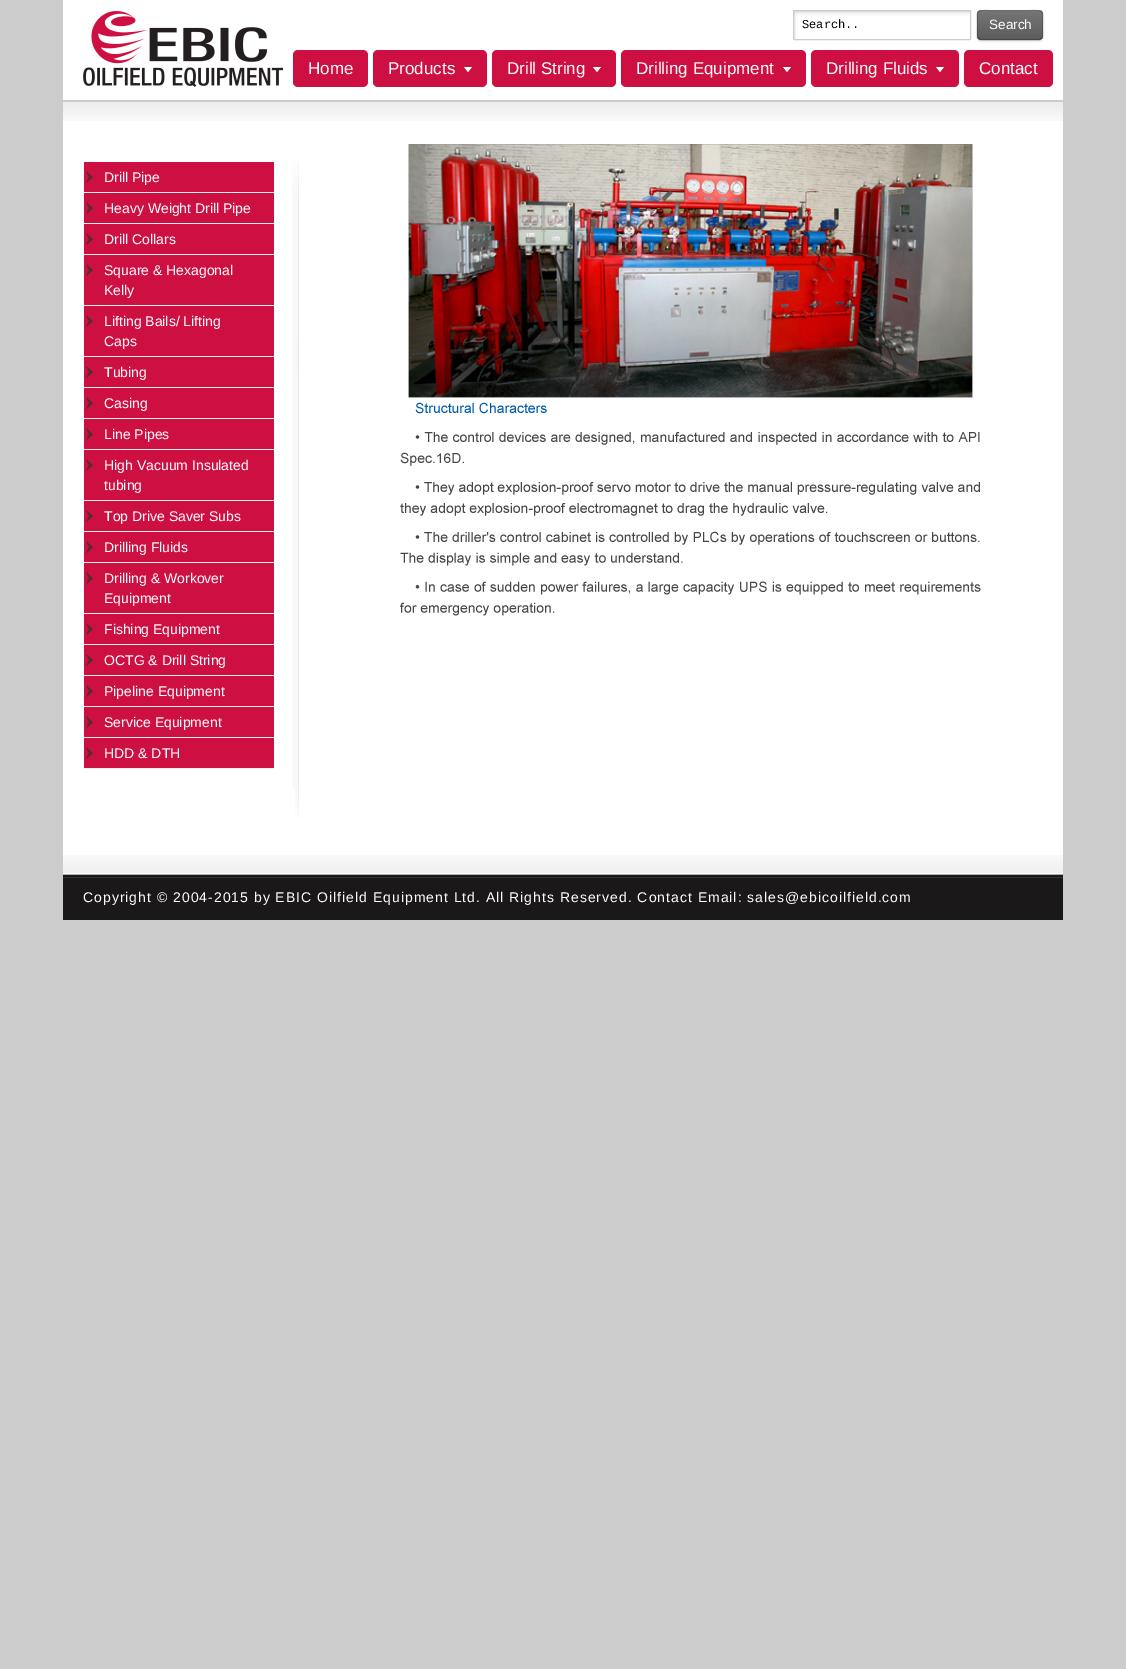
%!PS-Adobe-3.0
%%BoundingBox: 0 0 1126 1669
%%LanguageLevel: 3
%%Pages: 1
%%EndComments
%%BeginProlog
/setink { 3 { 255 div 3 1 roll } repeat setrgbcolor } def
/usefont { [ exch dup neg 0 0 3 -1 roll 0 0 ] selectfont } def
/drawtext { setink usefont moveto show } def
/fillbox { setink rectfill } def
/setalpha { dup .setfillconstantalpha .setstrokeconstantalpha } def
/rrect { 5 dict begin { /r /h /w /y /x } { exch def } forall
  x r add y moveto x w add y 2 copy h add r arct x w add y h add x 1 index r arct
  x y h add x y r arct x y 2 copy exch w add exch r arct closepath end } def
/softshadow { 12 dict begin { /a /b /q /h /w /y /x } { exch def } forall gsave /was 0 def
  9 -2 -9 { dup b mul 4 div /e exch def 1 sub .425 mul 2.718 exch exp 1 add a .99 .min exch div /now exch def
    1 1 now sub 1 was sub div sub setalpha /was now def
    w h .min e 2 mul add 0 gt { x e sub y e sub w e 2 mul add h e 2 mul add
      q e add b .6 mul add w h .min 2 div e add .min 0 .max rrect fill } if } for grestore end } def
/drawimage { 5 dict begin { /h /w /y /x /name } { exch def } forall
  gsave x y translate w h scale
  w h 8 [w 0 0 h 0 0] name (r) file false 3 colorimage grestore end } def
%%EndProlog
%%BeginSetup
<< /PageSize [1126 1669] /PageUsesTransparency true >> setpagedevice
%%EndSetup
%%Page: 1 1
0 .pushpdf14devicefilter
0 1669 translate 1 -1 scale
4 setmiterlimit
0 0 1126 1669 204 204 204 fillbox
63 0 1000 875 255 255 255 fillbox
(assets/img1.rgb) 83 11 200 76 drawimage
(assets/img2.rgb) 794 11 176 28 drawimage
204 204 204 setink
793.5 10.5 177 29 0.5 rrect stroke
(Search..) 802 28 /LiberationMono-Regular 12 0 0 0 drawtext
977 11 66 30 4 1 0.2 softshadow
102 102 102 setink
977 10 66 30 4 rrect fill
gsave
977 10 66 30 4 rrect clip newpath
0.1 setalpha
gsave 977 10 moveto 1043 10 lineto 1043 11 lineto 977 11 lineto closepath clip newpath
<< /ShadingType 2 /ColorSpace /DeviceRGB /Coords [1010 11 1010 -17] /Extend [true true] /Function << /FunctionType 2 /Domain [0 1] /C0 [0 0 0] /C1 [1 1 1] /N 1 >> >> shfill grestore
gsave 977 11 moveto 1043 11 lineto 1043 39 lineto 977 39 lineto closepath clip newpath
<< /ShadingType 2 /ColorSpace /DeviceRGB /Coords [1010 39 1010 11] /Extend [true true] /Function << /FunctionType 2 /Domain [0 1] /C0 [0 0 0] /C1 [1 1 1] /N 1 >> >> shfill grestore
gsave 977 39 moveto 1043 39 lineto 1043 40 lineto 977 40 lineto closepath clip newpath
<< /ShadingType 2 /ColorSpace /DeviceRGB /Coords [1010 67 1010 39] /Extend [true true] /Function << /FunctionType 2 /Domain [0 1] /C0 [0 0 0] /C1 [1 1 1] /N 1 >> >> shfill grestore
grestore
0.4 setalpha
0 0 0 setink
1041.5 38.5 moveto 1039.5 39.5 lineto 980.5 39.5 lineto 978.5 38.5 lineto stroke
0.2 setalpha
978.5 38.5 moveto 976.5 36.5 977.5 28 977.5 25 curveto 977.5 9 975 10.5 990.5 10.5 curveto 1029.5 10.5 lineto 1045 10.5 1042.5 9 1042.5 25 curveto 1042.5 28 1043.5 36.5 1041.5 38.5 curveto stroke
978 10 64 1 255 255 255 fillbox
1 setalpha
(Search) 989 29 /LiberationSans-Regular 13.5 255 255 255 drawtext
206 15 66 setink
293 50 75 37 5 rrect fill
(Home) 308 74 /LiberationSans-Regular 17 255 255 255 drawtext
206 15 66 setink
373 50 114 37 5 rrect fill
(Products) 388 74 /LiberationSans-Regular 17 255 255 255 drawtext
464 67 moveto 472 67 lineto 468 72 lineto closepath fill
206 15 66 setink
492 50 124 37 5 rrect fill
(Drill String) 507 74 /LiberationSans-Regular 17 255 255 255 drawtext
593 67 moveto 601 67 lineto 597 72 lineto closepath fill
206 15 66 setink
621 50 185 37 5 rrect fill
(Drilling Equipment) 636 74 /LiberationSans-Regular 17 255 255 255 drawtext
783 67 moveto 791 67 lineto 787 72 lineto closepath fill
206 15 66 setink
811 50 148 37 5 rrect fill
(Drilling Fluids) 826 74 /LiberationSans-Regular 17 255 255 255 drawtext
936 67 moveto 944 67 lineto 940 72 lineto closepath fill
206 15 66 setink
964 50 89 37 5 rrect fill
(Contact) 979 74 /LiberationSans-Regular 17 255 255 255 drawtext
(assets/img3.rgb) 63 100 1000 21 drawimage
(assets/img4.rgb) 292 161 7 628 drawimage
84 162 190 606 206 15 66 fillbox
(assets/img5.rgb) 86 171 7 12 drawimage
84 192 190 1 240 240 240 fillbox
(Drill Pipe) 104 182 /LiberationSans-Regular 14 255 255 255 drawtext
(assets/img5.rgb) 86 202 7 12 drawimage
84 223 190 1 240 240 240 fillbox
(Heavy Weight Drill Pipe) 104 213 /LiberationSans-Regular 14 255 255 255 drawtext
(assets/img5.rgb) 86 233 7 12 drawimage
84 254 190 1 240 240 240 fillbox
(Drill Collars) 104 244 /LiberationSans-Regular 14 255 255 255 drawtext
(assets/img5.rgb) 86 264 7 12 drawimage
84 305 190 1 240 240 240 fillbox
(Square & Hexagonal) 104 275 /LiberationSans-Regular 14 255 255 255 drawtext
(Kelly) 104 295 /LiberationSans-Regular 14 255 255 255 drawtext
(assets/img5.rgb) 86 315 7 12 drawimage
84 356 190 1 240 240 240 fillbox
(Lifting Bails/ Lifting) 104 326 /LiberationSans-Regular 14 255 255 255 drawtext
(Caps) 104 346 /LiberationSans-Regular 14 255 255 255 drawtext
(assets/img5.rgb) 86 366 7 12 drawimage
84 387 190 1 240 240 240 fillbox
(Tubing) 104 377 /LiberationSans-Regular 14 255 255 255 drawtext
(assets/img5.rgb) 86 397 7 12 drawimage
84 418 190 1 240 240 240 fillbox
(Casing) 104 408 /LiberationSans-Regular 14 255 255 255 drawtext
(assets/img5.rgb) 86 428 7 12 drawimage
84 449 190 1 240 240 240 fillbox
(Line Pipes) 104 439 /LiberationSans-Regular 14 255 255 255 drawtext
(assets/img5.rgb) 86 459 7 12 drawimage
84 500 190 1 240 240 240 fillbox
(High Vacuum Insulated) 104 470 /LiberationSans-Regular 14 255 255 255 drawtext
(tubing) 104 490 /LiberationSans-Regular 14 255 255 255 drawtext
(assets/img5.rgb) 86 510 7 12 drawimage
84 531 190 1 240 240 240 fillbox
(Top Drive Saver Subs) 104 521 /LiberationSans-Regular 14 255 255 255 drawtext
(assets/img5.rgb) 86 541 7 12 drawimage
84 562 190 1 240 240 240 fillbox
(Drilling Fluids) 104 552 /LiberationSans-Regular 14 255 255 255 drawtext
(assets/img5.rgb) 86 572 7 12 drawimage
84 613 190 1 240 240 240 fillbox
(Drilling & Workover) 104 583 /LiberationSans-Regular 14 255 255 255 drawtext
(Equipment) 104 603 /LiberationSans-Regular 14 255 255 255 drawtext
(assets/img5.rgb) 86 623 7 12 drawimage
84 644 190 1 240 240 240 fillbox
(Fishing Equipment) 104 634 /LiberationSans-Regular 14 255 255 255 drawtext
(assets/img5.rgb) 86 654 7 12 drawimage
84 675 190 1 240 240 240 fillbox
(OCTG & Drill String) 104 665 /LiberationSans-Regular 14 255 255 255 drawtext
(assets/img5.rgb) 86 685 7 12 drawimage
84 706 190 1 240 240 240 fillbox
(Pipeline Equipment) 104 696 /LiberationSans-Regular 14 255 255 255 drawtext
(assets/img5.rgb) 86 716 7 12 drawimage
84 737 190 1 240 240 240 fillbox
(Service Equipment) 104 727 /LiberationSans-Regular 14 255 255 255 drawtext
(assets/img5.rgb) 86 747 7 12 drawimage
84 768 190 1 240 240 240 fillbox
(HDD & DTH) 104 758 /LiberationSans-Regular 14 255 255 255 drawtext
(assets/img6.rgb) 295 789 4 29 drawimage
(assets/img7.rgb) 400 144 581 472 drawimage
(assets/img8.rgb) 63 855 1000 20 drawimage
63 875 1000 45 34 30 31 fillbox
(assets/img9.rgb) 63 876 1000 44 drawimage
255 255 255 setink
83 902 moveto 1 0 (Copyright © 2004-2015 by EBIC Oilfield Equipment Ltd. All Rights Reserved. Contact Email: sales@ebicoilfield.com) ashow
.poppdf14devicefilter showpage
%%EOF
